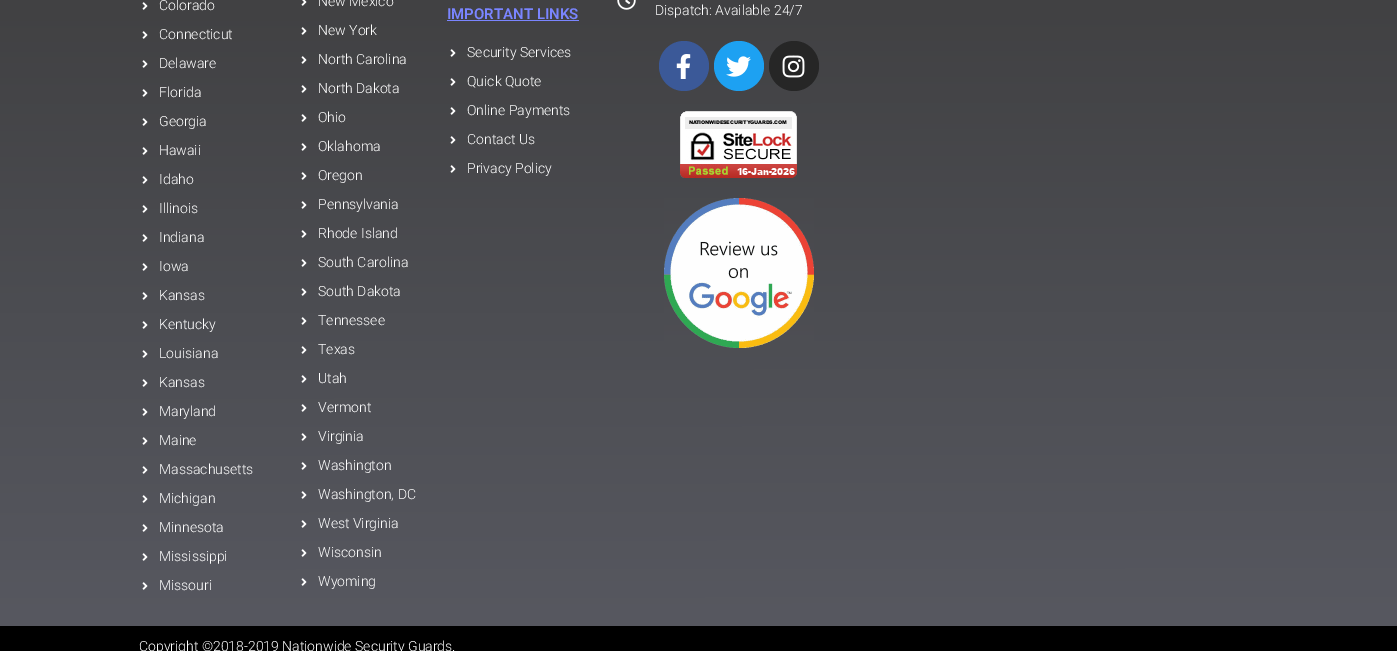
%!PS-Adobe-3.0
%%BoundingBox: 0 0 1397 651
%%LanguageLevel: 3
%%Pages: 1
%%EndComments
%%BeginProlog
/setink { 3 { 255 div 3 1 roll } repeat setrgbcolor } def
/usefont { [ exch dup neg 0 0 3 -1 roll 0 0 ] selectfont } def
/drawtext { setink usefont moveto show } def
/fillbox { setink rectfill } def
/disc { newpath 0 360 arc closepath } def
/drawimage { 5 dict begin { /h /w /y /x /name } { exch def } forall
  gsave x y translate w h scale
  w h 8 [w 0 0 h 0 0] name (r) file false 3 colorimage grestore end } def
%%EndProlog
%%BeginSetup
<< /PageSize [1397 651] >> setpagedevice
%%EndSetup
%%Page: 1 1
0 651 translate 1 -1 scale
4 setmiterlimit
0 0 1397 651 255 255 255 fillbox
gsave 0 0 moveto 1397 0 lineto 1397 626 lineto 0 626 lineto closepath clip newpath
<< /ShadingType 2 /ColorSpace /DeviceRGB /Coords [699 626 698 -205] /Extend [true true] /Function << /FunctionType 2 /Domain [0 1] /C0 [0.341 0.345 0.376] /C1 [0.227 0.227 0.227] /N 1 >> >> shfill grestore
(assets/img1.rgb) 142 2 6 8 drawimage
(Colorado) 159 10 /Roboto-Light 14 255 255 255 drawtext
(assets/img2.rgb) 142 31 6 8 drawimage
(Connecticut) 159 39 /Roboto-Light 14 255 255 255 drawtext
(assets/img3.rgb) 142 60 6 8 drawimage
(Delaware) 159 68 /Roboto-Light 14 255 255 255 drawtext
(assets/img4.rgb) 142 89 6 8 drawimage
(Florida) 159 97 /Roboto-Light 14 255 255 255 drawtext
(assets/img5.rgb) 142 118 6 8 drawimage
(Georgia) 159 126 /Roboto-Light 14 255 255 255 drawtext
(assets/img6.rgb) 142 147 6 8 drawimage
(Hawaii) 159 155 /Roboto-Light 14 255 255 255 drawtext
(assets/img7.rgb) 142 176 6 8 drawimage
(Idaho) 159 184 /Roboto-Light 14 255 255 255 drawtext
(assets/img8.rgb) 142 205 6 8 drawimage
(Illinois) 159 213 /Roboto-Light 14 255 255 255 drawtext
(assets/img9.rgb) 142 234 6 8 drawimage
(Indiana) 159 242 /Roboto-Light 14 255 255 255 drawtext
(assets/img10.rgb) 142 263 6 8 drawimage
(Iowa) 159 271 /Roboto-Light 14 255 255 255 drawtext
(assets/img11.rgb) 142 292 6 8 drawimage
(Kansas) 159 300 /Roboto-Light 14 255 255 255 drawtext
(assets/img12.rgb) 142 321 6 8 drawimage
(Kentucky) 159 329 /Roboto-Light 14 255 255 255 drawtext
(assets/img13.rgb) 142 350 6 8 drawimage
(Louisiana) 159 358 /Roboto-Light 14 255 255 255 drawtext
(assets/img14.rgb) 142 379 6 8 drawimage
(Kansas) 159 387 /Roboto-Light 14 255 255 255 drawtext
(assets/img15.rgb) 142 408 6 8 drawimage
(Maryland) 159 416 /Roboto-Light 14 255 255 255 drawtext
(assets/img16.rgb) 142 437 6 8 drawimage
(Maine) 159 445 /Roboto-Light 14 255 255 255 drawtext
(assets/img17.rgb) 142 466 6 8 drawimage
(Massachusetts) 159 474 /Roboto-Light 14 255 255 255 drawtext
(assets/img18.rgb) 142 495 6 8 drawimage
(Michigan) 159 503 /Roboto-Light 14 255 255 255 drawtext
(assets/img19.rgb) 142 524 6 8 drawimage
(Minnesota) 159 532 /Roboto-Light 14 255 255 255 drawtext
(assets/img20.rgb) 142 553 6 8 drawimage
(Mississippi) 159 561 /Roboto-Light 14 255 255 255 drawtext
(assets/img21.rgb) 142 582 6 8 drawimage
(Missouri) 159 590 /Roboto-Light 14 255 255 255 drawtext
(assets/img22.rgb) 301 0 6 6 drawimage
(New Mexico) 318 6 /Roboto-Light 14 255 255 255 drawtext
(assets/img23.rgb) 301 27 6 8 drawimage
(New York) 318 35 /Roboto-Light 14 255 255 255 drawtext
(assets/img24.rgb) 301 56 6 8 drawimage
(North Carolina) 318 64 /Roboto-Light 14 255 255 255 drawtext
(assets/img25.rgb) 301 85 6 8 drawimage
(North Dakota) 318 93 /Roboto-Light 14 255 255 255 drawtext
(assets/img26.rgb) 301 114 6 8 drawimage
(Ohio) 318 122 /Roboto-Light 14 255 255 255 drawtext
(assets/img27.rgb) 301 143 6 8 drawimage
(Oklahoma) 318 151 /Roboto-Light 14 255 255 255 drawtext
(assets/img28.rgb) 301 172 6 8 drawimage
(Oregon) 318 180 /Roboto-Light 14 255 255 255 drawtext
(assets/img29.rgb) 301 201 6 8 drawimage
(Pennsylvania) 318 209 /Roboto-Light 14 255 255 255 drawtext
(assets/img30.rgb) 301 230 6 8 drawimage
(Rhode Island) 318 238 /Roboto-Light 14 255 255 255 drawtext
(assets/img31.rgb) 301 259 6 8 drawimage
(South Carolina) 318 267 /Roboto-Light 14 255 255 255 drawtext
(assets/img32.rgb) 301 288 6 8 drawimage
(South Dakota) 318 296 /Roboto-Light 14 255 255 255 drawtext
(assets/img33.rgb) 301 317 6 8 drawimage
(Tennessee) 318 325 /Roboto-Light 14 255 255 255 drawtext
(assets/img34.rgb) 301 346 6 8 drawimage
(Texas) 318 354 /Roboto-Light 14 255 255 255 drawtext
(assets/img35.rgb) 301 375 6 8 drawimage
(Utah) 318 383 /Roboto-Light 14 255 255 255 drawtext
(assets/img36.rgb) 301 404 6 8 drawimage
(Vermont) 318 412 /Roboto-Light 14 255 255 255 drawtext
(assets/img37.rgb) 301 433 6 8 drawimage
(Virginia) 318 441 /Roboto-Light 14 255 255 255 drawtext
(assets/img38.rgb) 301 462 6 8 drawimage
(Washington) 318 470 /Roboto-Light 14 255 255 255 drawtext
(assets/img39.rgb) 301 491 6 8 drawimage
(Washington, DC) 318 499 /Roboto-Light 14 255 255 255 drawtext
(assets/img40.rgb) 301 520 6 8 drawimage
(West Virginia) 318 528 /Roboto-Light 14 255 255 255 drawtext
(assets/img41.rgb) 301 549 6 8 drawimage
(Wisconsin) 318 557 /Roboto-Light 14 255 255 255 drawtext
(assets/img42.rgb) 301 578 6 8 drawimage
(Wyoming) 318 586 /Roboto-Light 14 255 255 255 drawtext
(IMPORTANT LINKS) 447 19 /Roboto-SemiBold 15 122 133 255 drawtext
447 20 132 1 122 133 255 fillbox
(assets/img43.rgb) 450 49 6 8 drawimage
(Security Services) 467 57 /Roboto-Light 14 255 255 255 drawtext
(assets/img44.rgb) 450 78 6 8 drawimage
(Quick Quote) 467 86 /Roboto-Light 14 255 255 255 drawtext
(assets/img45.rgb) 450 107 6 8 drawimage
(Online Payments) 467 115 /Roboto-Light 14 255 255 255 drawtext
(assets/img46.rgb) 450 136 6 8 drawimage
(Contact Us) 467 144 /Roboto-Light 14 255 255 255 drawtext
(assets/img47.rgb) 450 165 6 8 drawimage
(Privacy Policy) 467 173 /Roboto-Light 14 255 255 255 drawtext
(assets/img48.rgb) 617 0 19 10 drawimage
(Dispatch: Available 24/7) 655 15 /Roboto-Light 14 255 255 255 drawtext
59 89 152 setink
684 66 25 disc fill
(assets/img49.rgb) 676 54 15 25 drawimage
29 161 242 setink
739 66 25 disc fill
(assets/img50.rgb) 726 56 25 21 drawimage
38 38 38 setink
794 66 25 disc fill
(assets/img51.rgb) 782 55 23 23 drawimage
(assets/img52.rgb) 680 111 117 67 drawimage
(assets/img53.rgb) 664 198 150 150 drawimage
0 626 1397 25 0 0 0 fillbox
(Copyright ©2018-2019 Nationwide Security Guards.) 139 651 /Roboto-Light 14 255 255 255 drawtext
showpage
%%EOF
